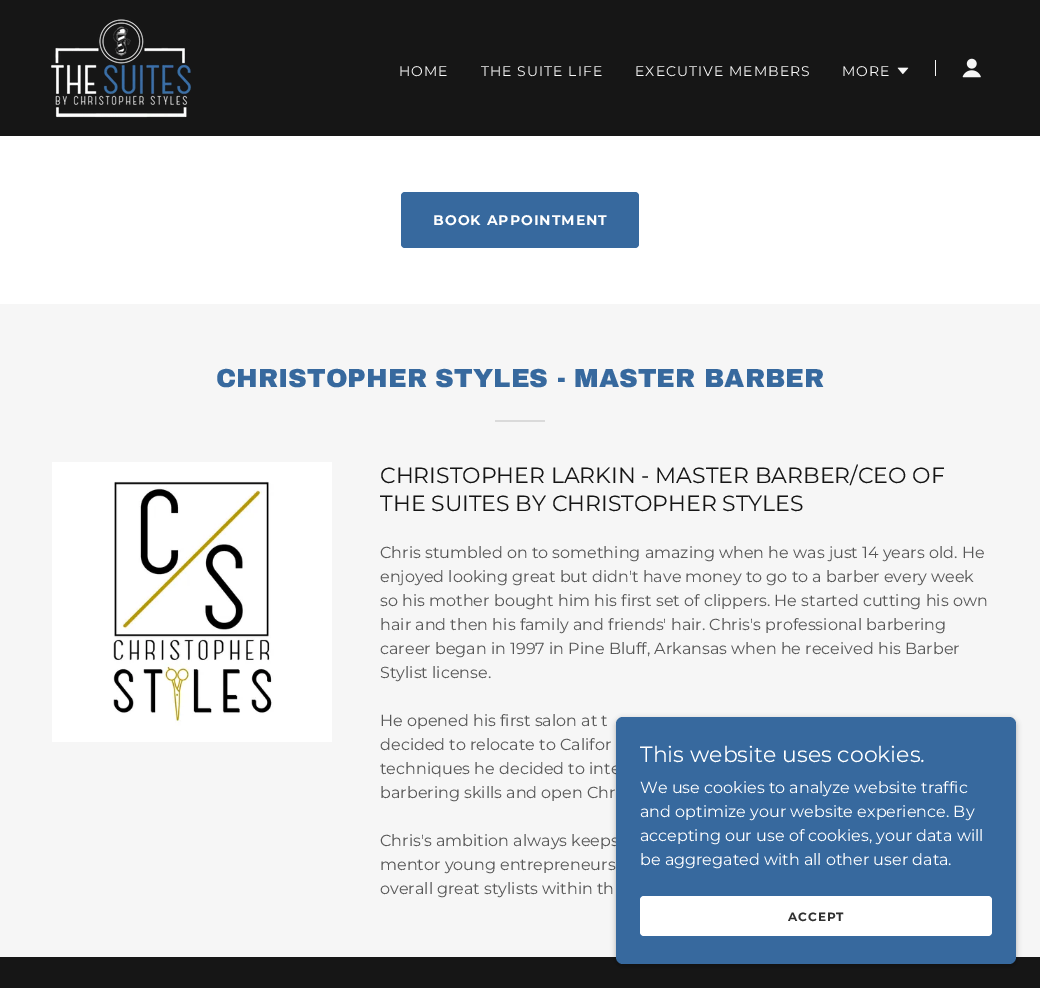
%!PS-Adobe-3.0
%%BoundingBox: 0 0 1040 988
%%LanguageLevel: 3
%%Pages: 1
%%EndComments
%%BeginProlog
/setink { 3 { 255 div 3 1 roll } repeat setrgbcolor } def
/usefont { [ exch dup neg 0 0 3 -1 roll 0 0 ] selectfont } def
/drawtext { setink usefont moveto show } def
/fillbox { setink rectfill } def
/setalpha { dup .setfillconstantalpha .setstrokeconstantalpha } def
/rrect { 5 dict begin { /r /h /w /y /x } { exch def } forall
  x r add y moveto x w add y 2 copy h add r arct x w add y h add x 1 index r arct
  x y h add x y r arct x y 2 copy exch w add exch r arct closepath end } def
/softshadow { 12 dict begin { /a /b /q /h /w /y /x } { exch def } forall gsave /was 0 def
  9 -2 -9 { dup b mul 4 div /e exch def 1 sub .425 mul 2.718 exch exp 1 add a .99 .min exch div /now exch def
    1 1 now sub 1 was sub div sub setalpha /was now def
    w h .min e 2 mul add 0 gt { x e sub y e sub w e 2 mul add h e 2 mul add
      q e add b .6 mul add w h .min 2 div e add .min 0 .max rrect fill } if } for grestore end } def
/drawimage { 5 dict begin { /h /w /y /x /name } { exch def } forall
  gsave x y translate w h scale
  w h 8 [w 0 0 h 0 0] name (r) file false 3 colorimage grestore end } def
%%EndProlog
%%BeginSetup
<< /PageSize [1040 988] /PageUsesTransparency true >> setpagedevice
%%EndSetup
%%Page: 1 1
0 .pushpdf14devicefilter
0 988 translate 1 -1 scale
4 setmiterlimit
0 0 1040 988 22 22 22 fillbox
(assets/img1.rgb) 51 19 140 99 drawimage
/Montserrat-Regular 14 usefont
247 247 247 setink
399 76 moveto 1 0 (HOME) ashow
481 76 moveto 1 0 (THE SUITE LIFE) ashow
635 76 moveto 1 0 (EXECUTIVE MEMBERS) ashow
842 76 moveto 1 0 (MORE) ashow
(assets/img2.rgb) 897 67 12 8 drawimage
935 60 1 16 247 247 247 fillbox
(assets/img3.rgb) 962 58 19 20 drawimage
0 136 1040 168 255 255 255 fillbox
55 105 158 setink
401 192 238 56 4 rrect fill
/Montserrat-Bold 14 usefont
255 255 255 setink
433 225 moveto 1 0 (BOOK APPOINTMENT) ashow
0 304 1040 653 246 246 246 fillbox
(CHRISTOPHER STYLES - MASTER BARBER) 216 387 /ArchivoBlack-Black 26 55 105 158 drawtext
495 420 50 2 218 218 218 fillbox
(assets/img4.rgb) 52 462 280 280 drawimage
(CHRISTOPHER LARKIN - MASTER BARBER/CEO OF) 380 483 /Montserrat-Regular 22 21 21 21 drawtext
(THE SUITES BY CHRISTOPHER STYLES) 380 511 /Montserrat-Regular 22 21 21 21 drawtext
(Chris stumbled on to something amazing when he was just 14 years old. He) 380 558 /Montserrat-Regular 16 87 87 87 drawtext
(enjoyed looking great but didn't have money to go to a barber every week) 380 582 /Montserrat-Regular 16 87 87 87 drawtext
(so his mother bought him his first set of clippers. He started cutting his own) 380 606 /Montserrat-Regular 16 87 87 87 drawtext
(hair and then his family and friends' hair. Chris's professional barbering) 380 630 /Montserrat-Regular 16 87 87 87 drawtext
(career began in 1997 in Pine Bluff, Arkansas when he received his Barber) 380 654 /Montserrat-Regular 16 87 87 87 drawtext
(Stylist license.) 380 678 /Montserrat-Regular 16 87 87 87 drawtext
(He opened his first salon at t) 380 726 /Montserrat-Regular 16 87 87 87 drawtext
(decided to relocate to Califor) 380 750 /Montserrat-Regular 16 87 87 87 drawtext
(techniques he decided to inte) 380 774 /Montserrat-Regular 16 87 87 87 drawtext
(barbering skills and open Chr) 380 798 /Montserrat-Regular 16 87 87 87 drawtext
(Chris's ambition always keeps) 380 846 /Montserrat-Regular 16 87 87 87 drawtext
(mentor young entrepreneurs) 380 870 /Montserrat-Regular 16 87 87 87 drawtext
(overall great stylists within th) 380 894 /Montserrat-Regular 16 87 87 87 drawtext
0 0 0 setink
616 719 400 247 7 3 0.3 softshadow
55 105 158 setink
616 717 400 247 7 rrect fill
(This website uses cookies.) 640 762 /Montserrat-Regular 22 255 255 255 drawtext
(We use cookies to analyze website traffic) 640 793 /Montserrat-Regular 16 255 255 255 drawtext
(and optimize your website experience. By) 640 817 /Montserrat-Regular 16 255 255 255 drawtext
(accepting our use of cookies, your data will) 640 841 /Montserrat-Regular 16 255 255 255 drawtext
(be aggregated with all other user data.) 640 865 /Montserrat-Regular 16 255 255 255 drawtext
640 896 352 40 4 rrect fill
/Montserrat-Bold 12 usefont
48 48 48 setink
788 921 moveto 1 0 (ACCEPT) ashow
.poppdf14devicefilter showpage
%%EOF
